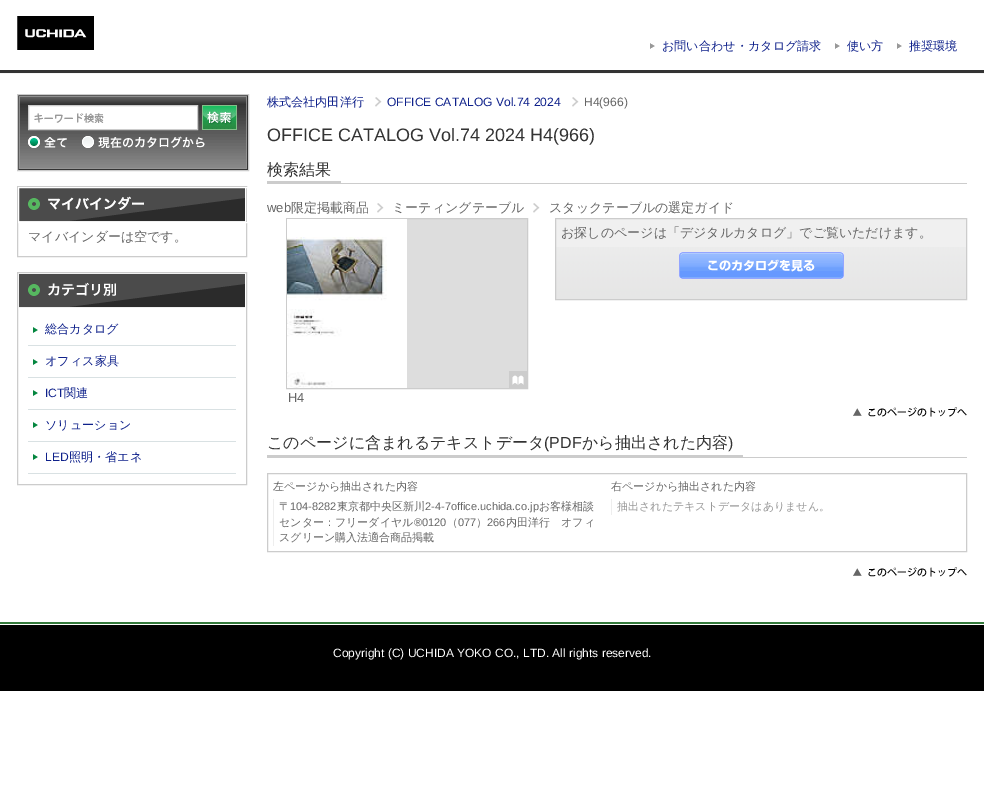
%!PS-Adobe-3.0
%%BoundingBox: 0 0 984 801
%%LanguageLevel: 3
%%Pages: 1
%%EndComments
%%BeginProlog
/setink { 3 { 255 div 3 1 roll } repeat setrgbcolor } def
/usefont { [ exch dup neg 0 0 3 -1 roll 0 0 ] selectfont } def
/drawtext { setink usefont moveto show } def
/fillbox { setink rectfill } def
/drawimage { 5 dict begin { /h /w /y /x /name } { exch def } forall
  gsave x y translate w h scale
  w h 8 [w 0 0 h 0 0] name (r) file false 3 colorimage grestore end } def
%%EndProlog
%%BeginSetup
<< /PageSize [984 801] >> setpagedevice
%%EndSetup
%%Page: 1 1
0 801 translate 1 -1 scale
4 setmiterlimit
0 0 984 801 255 255 255 fillbox
0 73 984 1 245 245 245 fillbox
(assets/img1.rgb) 17 16 77 34 drawimage
(assets/img2.rgb) 650 43 5 6 drawimage
(お問い合わせ・カタログ請求) 662 50 /WenQuanYiZenHei-Medium 12.1 15 33 139 drawtext
(assets/img2.rgb) 835 43 5 6 drawimage
(使い方) 847 50 /WenQuanYiZenHei-Medium 12.1 15 33 139 drawtext
(assets/img2.rgb) 897 43 5 6 drawimage
(推奨環境) 909 50 /WenQuanYiZenHei-Medium 12.1 15 33 139 drawtext
0 70 984 3 51 51 51 fillbox
(assets/img3.rgb) 18 95 230 75 drawimage
204 204 204 setink
17.5 94.5 231 76 rectstroke
29 106 168 23 255 255 255 fillbox
(assets/img4.rgb) 34 113 70 10 drawimage
204 204 204 setink
28.5 105.5 169 24 rectstroke
(assets/img5.rgb) 202 105 35 25 drawimage
(assets/img6.rgb) 28 136 39 12 drawimage
(assets/img7.rgb) 82 136 123 12 drawimage
17.5 186.5 229 70 rectstroke
(assets/img8.rgb) 19 188 226 34 drawimage
255 255 255 setink
18.5 187.5 229 35 rectstroke
(マイバインダーは空です。) 28 241 /WenQuanYiZenHei-Medium 13 102 102 102 drawtext
(株式会社内田洋行) 267 106 /WenQuanYiZenHei-Medium 12.1 15 33 139 drawtext
(assets/img9.rgb) 375 97 7 10 drawimage
(OFFICE CATALOG Vol.74 2024) 387 106 /LiberationSans-Regular 12.1 15 33 139 drawtext
(assets/img9.rgb) 572 97 7 10 drawimage
(H4\(966\)) 584 106 /LiberationSans-Regular 12.1 102 102 102 drawtext
(OFFICE CATALOG Vol.74 2024 H4\(966\)) 267 141 /LiberationSans-Regular 18 51 51 51 drawtext
267 183 700 1 204 204 204 fillbox
267 181 74 2 204 204 204 fillbox
(検索結果) 267 175 /WenQuanYiZenHei-Medium 16 51 51 51 drawtext
(web) 267 212 /LiberationSans-Regular 13 102 102 102 drawtext
(限定掲載商品) 291 212 /WenQuanYiZenHei-Medium 13 102 102 102 drawtext
(assets/img9.rgb) 377 203 7 10 drawimage
(ミーティングテーブル) 392 212 /WenQuanYiZenHei-Medium 13 102 102 102 drawtext
(assets/img9.rgb) 533 203 7 10 drawimage
(スタックテーブルの選定ガイド) 549 212 /WenQuanYiZenHei-Medium 13 102 102 102 drawtext
556 219 410 28 240 240 240 fillbox
(assets/img10.rgb) 556 247 410 52 drawimage
204 204 204 setink
555.5 218.5 411 81 rectstroke
(お探しのページは「デジタルカタログ」でご覧いただけます。) 561 237 /WenQuanYiZenHei-Medium 13 102 102 102 drawtext
(assets/img11.rgb) 679 252 165 27 drawimage
407 219 120 169 221 221 221 fillbox
204 204 204 setink
286.5 218.5 241 170 rectstroke
(assets/img12.rgb) 287 219 120 169 drawimage
(assets/img13.rgb) 509 371 18 17 drawimage
(H4) 288 402 /LiberationSans-Regular 13 102 102 102 drawtext
(assets/img14.rgb) 853 407 114 10 drawimage
267 457 700 1 204 204 204 fillbox
267 455 476 2 204 204 204 fillbox
(このページに含まれるテキストデータ) 267 448 /WenQuanYiZenHei-Medium 16 51 51 51 drawtext
(\(PDF) 544 448 /LiberationSans-Regular 16 51 51 51 drawtext
(から抽出された内容) 582 448 /WenQuanYiZenHei-Medium 16 51 51 51 drawtext
(\)) 728 448 /LiberationSans-Regular 16 51 51 51 drawtext
204 204 204 setink
267.5 473.5 699 78 rectstroke
(左ページから抽出された内容) 273 490 /WenQuanYiZenHei-Medium 11 102 102 102 drawtext
273 499 1 47 238 238 238 fillbox
(〒) 279 510 /WenQuanYiZenHei-Medium 11 102 102 102 drawtext
(104-8282) 290 510 /LiberationSans-Regular 11 102 102 102 drawtext
(東京都中央区新川) 337 510 /WenQuanYiZenHei-Medium 11 102 102 102 drawtext
(2-4-7office.uchida.co.jp) 425 510 /LiberationSans-Regular 11 102 102 102 drawtext
(お客様相談) 539 510 /WenQuanYiZenHei-Medium 11 102 102 102 drawtext
(センター：フリーダイヤル) 279 526 /WenQuanYiZenHei-Medium 11 102 102 102 drawtext
(®0120) 414 526 /LiberationSans-Regular 11 102 102 102 drawtext
(（) 447 526 /WenQuanYiZenHei-Medium 11 102 102 102 drawtext
(077) 458 526 /LiberationSans-Regular 11 102 102 102 drawtext
(）) 476 526 /WenQuanYiZenHei-Medium 11 102 102 102 drawtext
(266) 487 526 /LiberationSans-Regular 11 102 102 102 drawtext
(内田洋行) 506 526 /WenQuanYiZenHei-Medium 11 102 102 102 drawtext
(オフィ) 561 526 /WenQuanYiZenHei-Medium 11 102 102 102 drawtext
(スグリーン購入法適合商品掲載) 279 541 /WenQuanYiZenHei-Medium 11 102 102 102 drawtext
(右ページから抽出された内容) 611 490 /WenQuanYiZenHei-Medium 11 102 102 102 drawtext
611 499 1 16 238 238 238 fillbox
(抽出されたテキストデータはありません。) 617 510 /WenQuanYiZenHei-Medium 11 153 153 153 drawtext
(assets/img14.rgb) 853 567 114 10 drawimage
204 204 204 setink
17.5 272.5 229 212 rectstroke
(assets/img15.rgb) 19 274 226 34 drawimage
(assets/img16.rgb) 33 327 5 6 drawimage
28 345 208 1 217 225 227 fillbox
(総合カタログ) 45 333 /WenQuanYiZenHei-Medium 12.1 15 33 139 drawtext
(assets/img16.rgb) 33 359 5 6 drawimage
28 377 208 1 217 225 227 fillbox
(オフィス家具) 45 365 /WenQuanYiZenHei-Medium 12.1 15 33 139 drawtext
(assets/img16.rgb) 33 390 5 6 drawimage
28 409 208 1 217 225 227 fillbox
(ICT) 45 397 /LiberationSans-Regular 12.1 15 33 139 drawtext
(関連) 64 397 /WenQuanYiZenHei-Medium 12.1 15 33 139 drawtext
(assets/img16.rgb) 33 422 5 6 drawimage
28 441 208 1 217 225 227 fillbox
(ソリューション) 45 429 /WenQuanYiZenHei-Medium 12.1 15 33 139 drawtext
(assets/img16.rgb) 33 454 5 6 drawimage
28 473 208 1 217 225 227 fillbox
(LED) 45 461 /LiberationSans-Regular 12.1 15 33 139 drawtext
(照明・省エネ) 69 461 /WenQuanYiZenHei-Medium 12.1 15 33 139 drawtext
0 622 984 2 52 122 59 fillbox
0 625 984 66 0 0 0 fillbox
(Copyright \(C\) UCHIDA YOKO CO., LTD. All rights reserved.) 333 657 /LiberationSans-Regular 12 255 255 255 drawtext
showpage
%%EOF
